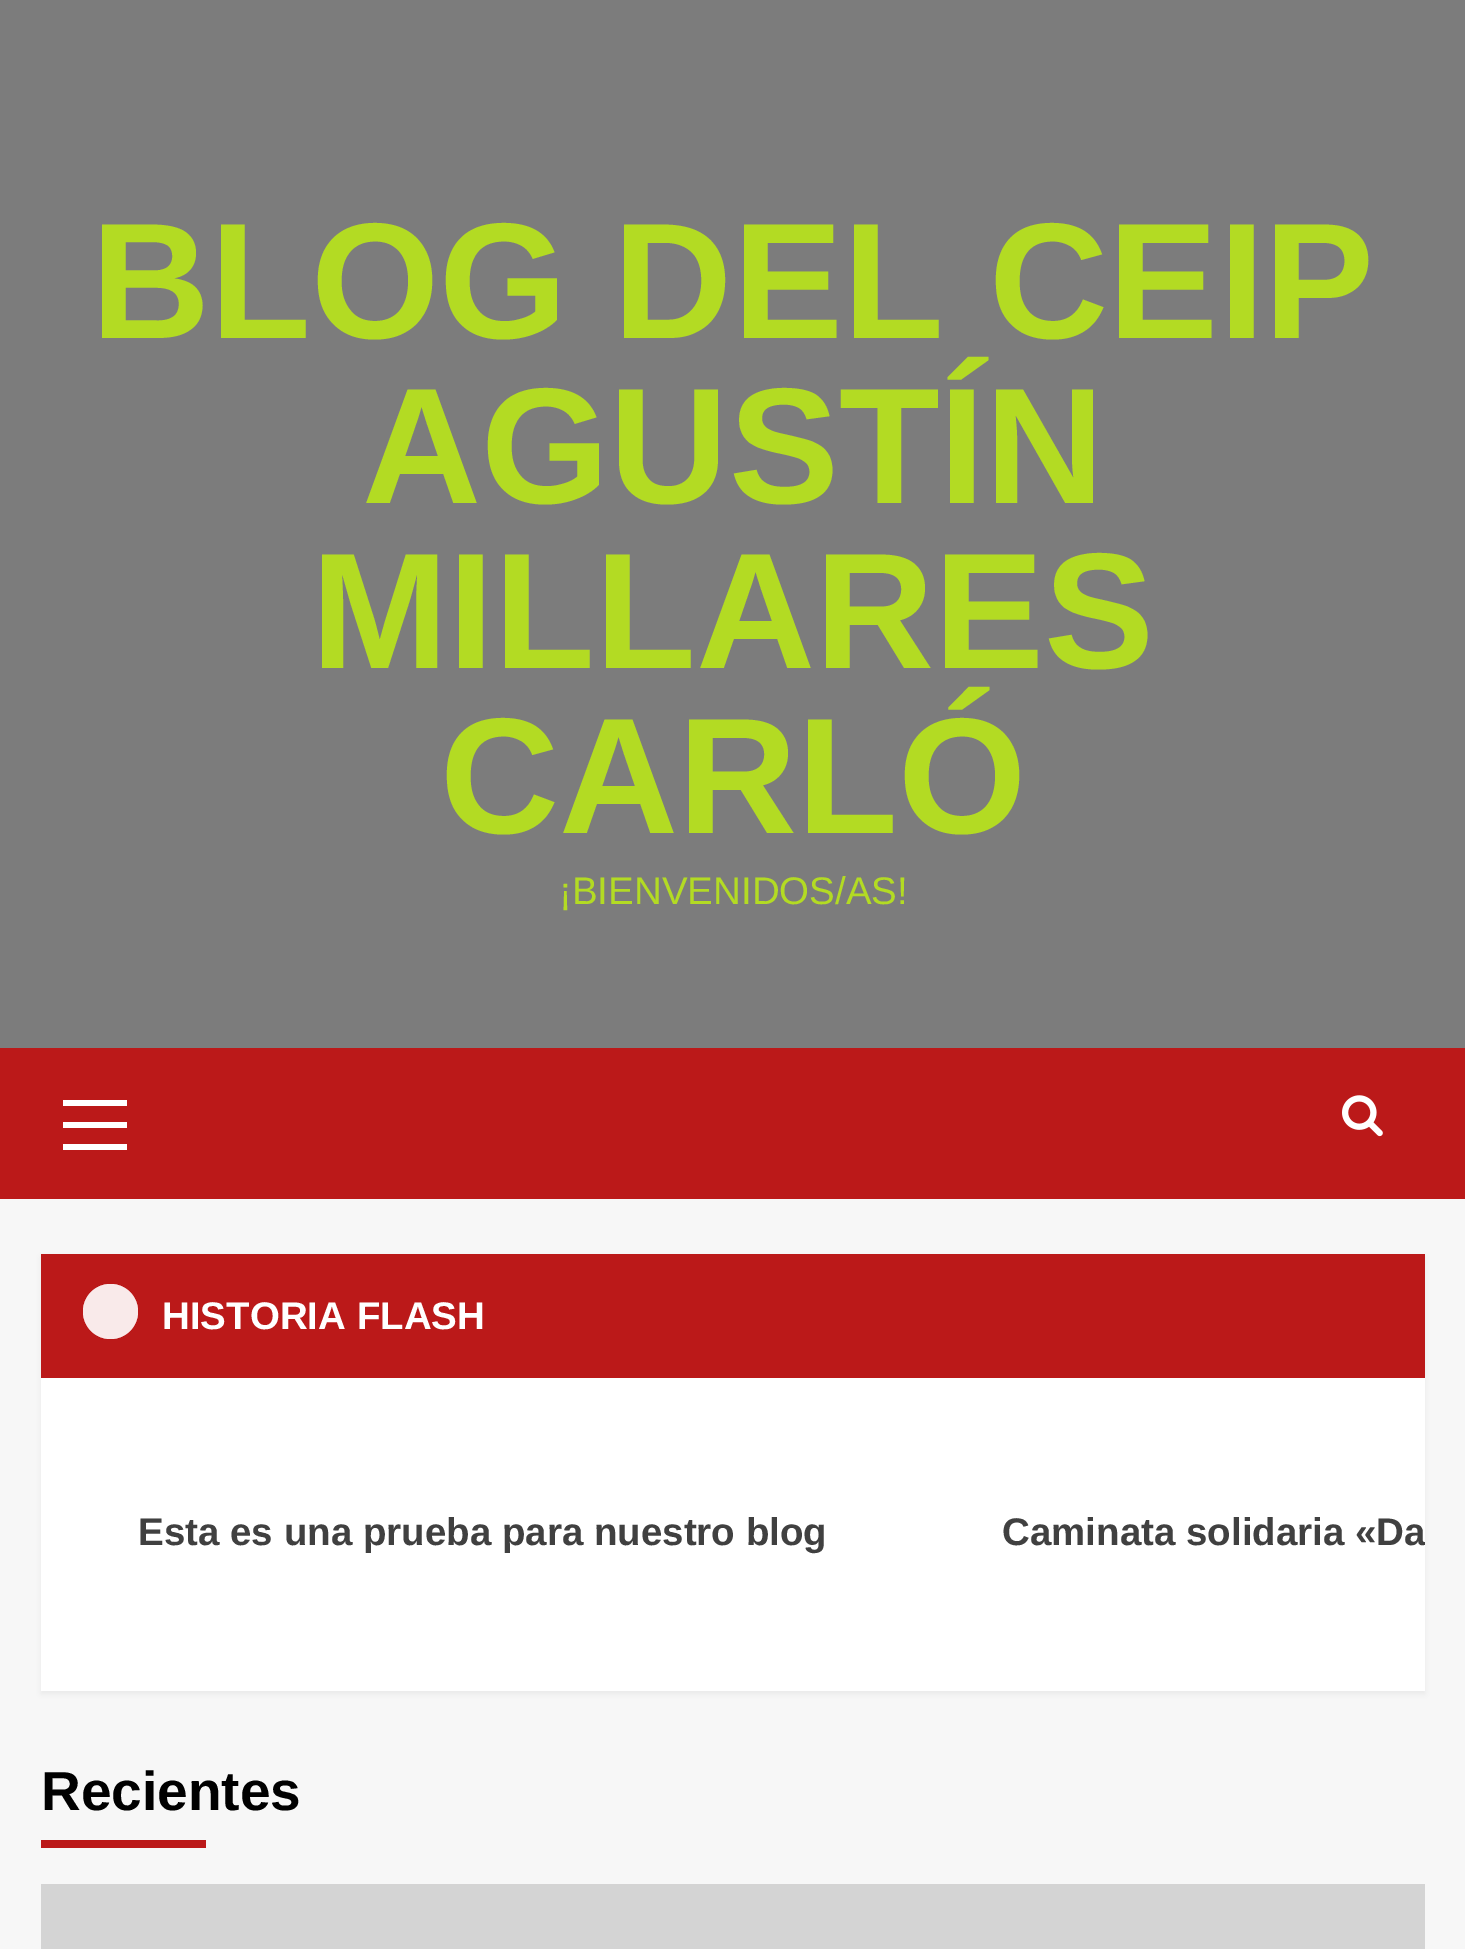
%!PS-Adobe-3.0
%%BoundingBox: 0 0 1465 1949
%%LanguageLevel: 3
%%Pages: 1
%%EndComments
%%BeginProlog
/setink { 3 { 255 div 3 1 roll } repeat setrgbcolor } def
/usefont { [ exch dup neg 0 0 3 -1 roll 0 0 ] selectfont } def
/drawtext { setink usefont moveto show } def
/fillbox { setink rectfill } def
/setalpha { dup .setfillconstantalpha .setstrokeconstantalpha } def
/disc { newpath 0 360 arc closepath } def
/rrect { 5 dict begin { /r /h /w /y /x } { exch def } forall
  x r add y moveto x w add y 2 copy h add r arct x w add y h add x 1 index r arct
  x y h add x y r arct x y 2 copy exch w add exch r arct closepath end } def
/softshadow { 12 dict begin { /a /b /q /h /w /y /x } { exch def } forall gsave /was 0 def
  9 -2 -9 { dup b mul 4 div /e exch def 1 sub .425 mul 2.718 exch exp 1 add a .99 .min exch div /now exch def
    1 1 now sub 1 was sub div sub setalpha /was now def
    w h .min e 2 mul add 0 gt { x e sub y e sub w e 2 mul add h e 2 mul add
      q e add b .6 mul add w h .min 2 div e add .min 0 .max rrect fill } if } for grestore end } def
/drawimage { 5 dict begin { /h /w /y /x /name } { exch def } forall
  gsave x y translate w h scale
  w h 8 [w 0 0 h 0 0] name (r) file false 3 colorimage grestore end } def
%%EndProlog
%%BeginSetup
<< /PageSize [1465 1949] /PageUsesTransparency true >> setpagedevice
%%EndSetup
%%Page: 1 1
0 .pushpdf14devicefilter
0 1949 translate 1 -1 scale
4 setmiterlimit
0 0 1465 1949 247 247 247 fillbox
0 0 1465 1048 124 124 124 fillbox
(BLOG DEL CEIP) 91 338 /LiberationSans-Bold 165 179 219 35 drawtext
(AGUSTÍN) 362 503 /LiberationSans-Bold 165 179 219 35 drawtext
(MILLARES) 311 668 /LiberationSans-Bold 165 179 219 35 drawtext
(CARLÓ) 440 833 /LiberationSans-Bold 165 179 219 35 drawtext
(¡BIENVENIDOS/AS!) 559 904 /LiberationSans-Regular 38.5 179 219 35 drawtext
0 1048 1465 151 187 25 25 fillbox
63 1122 64 6 255 255 255 fillbox
63 1100 64 6 255 255 255 fillbox
63 1144 64 6 255 255 255 fillbox
(assets/img1.rgb) 1342 1095 41 42 drawimage
0 0 0 setink
41 1257 1384 437 0 3 0.05 softshadow
41 1378 1384 313 255 255 255 fillbox
41 1254 1384 124 187 25 25 fillbox
235 186 186 setink
110.5 1311.5 27.5 disc fill
0.7 setalpha
255 255 255 setink
110.5 1311.5 27.5 disc fill
1 setalpha
(HISTORIA FLASH) 162 1329 /LiberationSans-Bold 38.5 255 255 255 drawtext
(Esta es una prueba para nuestro blog) 138 1545 /LiberationSans-Bold 38.5 64 64 64 drawtext
gsave
41 1378 1384 313 rectclip
(Caminata solidaria «Da) 1002 1545 /LiberationSans-Bold 38.5 64 64 64 drawtext
grestore
(Recientes) 41 1810 /LiberationSans-Bold 55 0 0 0 drawtext
41 1840 165 8 187 25 25 fillbox
41 1884 1384 65 212 212 212 fillbox
.poppdf14devicefilter showpage
%%EOF
